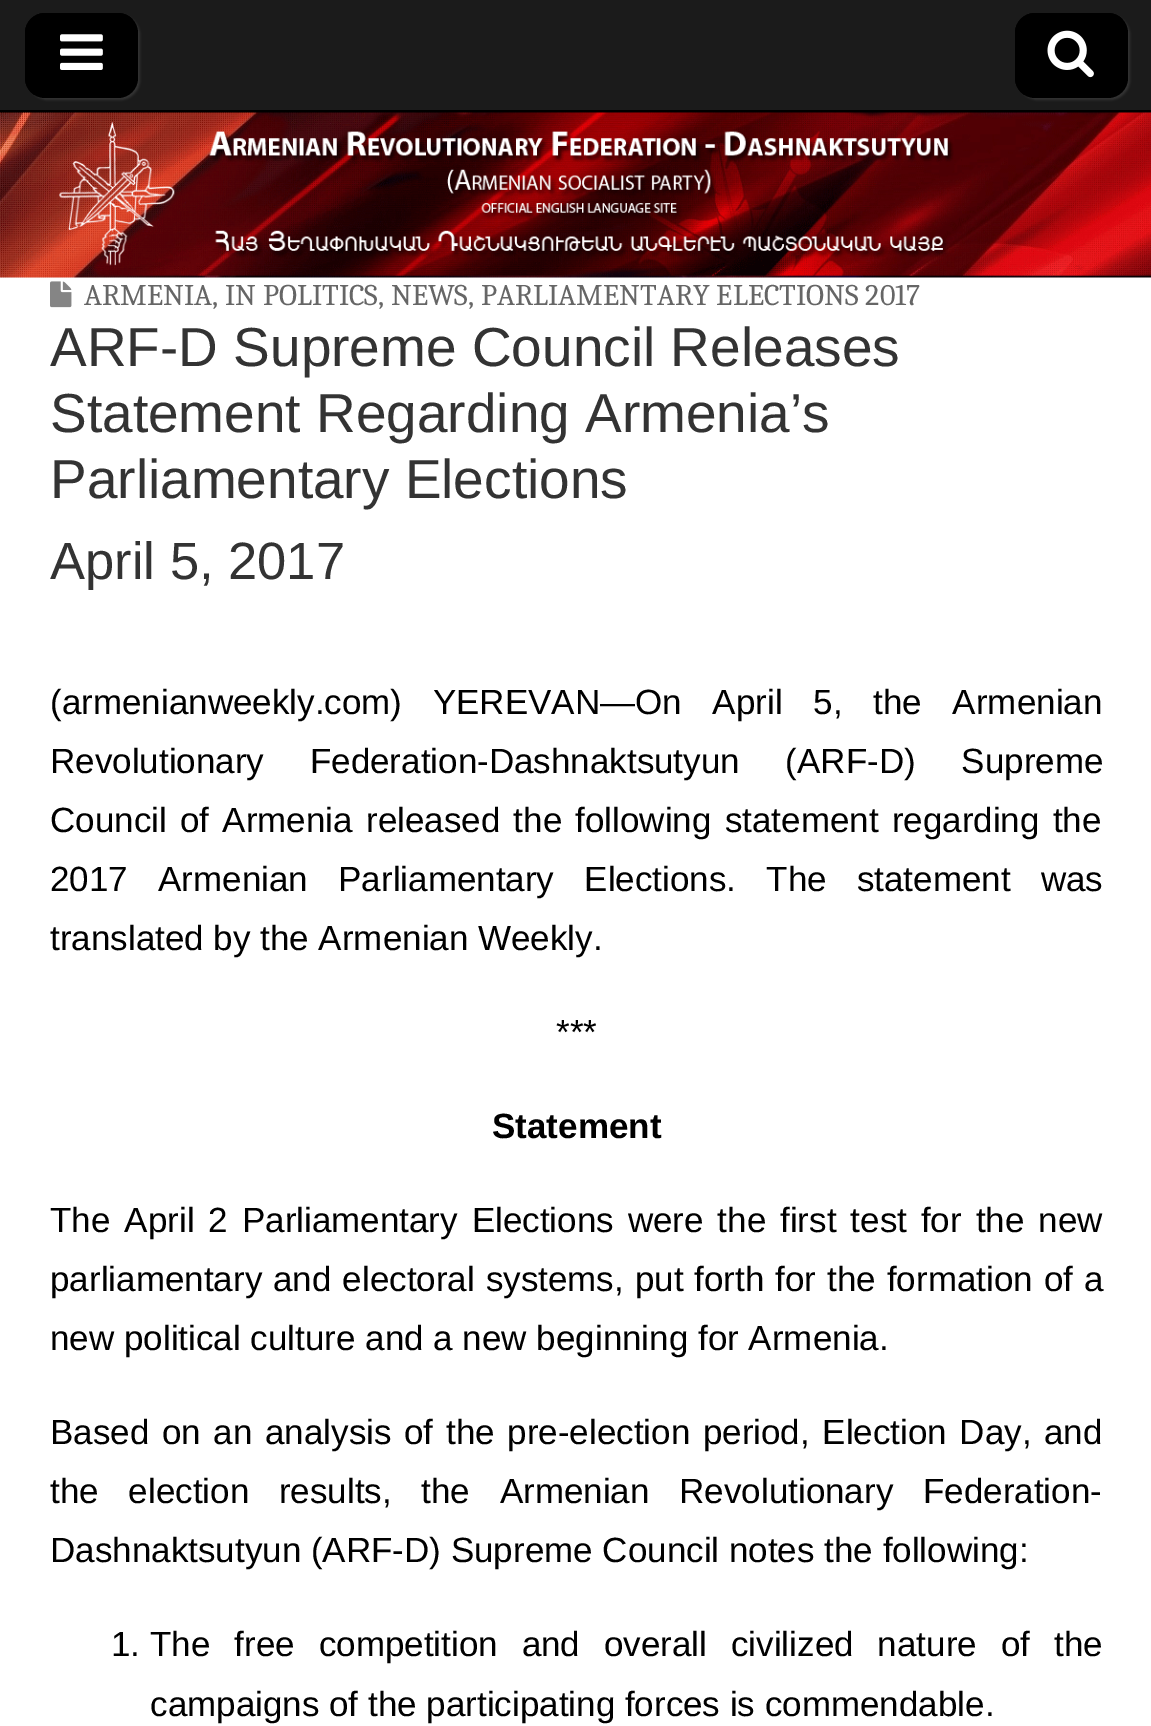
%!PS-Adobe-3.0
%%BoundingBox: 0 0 1151 1726
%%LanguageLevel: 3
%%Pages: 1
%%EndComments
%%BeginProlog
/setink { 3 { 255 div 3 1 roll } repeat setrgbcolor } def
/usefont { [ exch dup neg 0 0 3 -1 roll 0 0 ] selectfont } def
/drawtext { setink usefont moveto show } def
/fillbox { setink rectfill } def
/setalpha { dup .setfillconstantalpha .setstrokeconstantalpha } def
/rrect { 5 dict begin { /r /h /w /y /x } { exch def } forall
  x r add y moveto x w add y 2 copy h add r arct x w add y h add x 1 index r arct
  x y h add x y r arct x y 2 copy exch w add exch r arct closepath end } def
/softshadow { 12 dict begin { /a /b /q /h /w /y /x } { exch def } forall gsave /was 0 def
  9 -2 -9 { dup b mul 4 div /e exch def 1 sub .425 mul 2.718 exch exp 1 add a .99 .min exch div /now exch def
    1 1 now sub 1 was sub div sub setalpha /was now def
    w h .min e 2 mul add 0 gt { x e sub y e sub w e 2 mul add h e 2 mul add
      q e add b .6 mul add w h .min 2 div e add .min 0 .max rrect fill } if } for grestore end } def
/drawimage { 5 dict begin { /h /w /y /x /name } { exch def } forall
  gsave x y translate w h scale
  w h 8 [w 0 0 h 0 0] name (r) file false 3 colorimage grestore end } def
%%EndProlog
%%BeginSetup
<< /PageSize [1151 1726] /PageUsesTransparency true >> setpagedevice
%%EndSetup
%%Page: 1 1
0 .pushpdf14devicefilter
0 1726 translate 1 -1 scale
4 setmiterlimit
0 0 1151 1726 255 255 255 fillbox
0 0 1151 110 27 27 27 fillbox
0 110 1151 3 0 0 0 fillbox
51 51 51 setink
28 15 112 85 20 1 1 softshadow
0 0 0 setink
25 13 113 85 20 rrect fill
48 15 moveto 120 15 lineto 125 15 130 17 133 20 curveto 130 16 124 13 118 13 curveto 45 13 lineto 34 13 25 22 25 33 curveto 25 78 lineto 25 85 29 91 34 95 curveto 30 91 28 86 28 80 curveto 28 35 lineto 28 24 36 15 48 15 curveto closepath fill
(assets/img1.rgb) 60 34 43 36 drawimage
51 51 51 setink
1018 15 112 85 20 1 1 softshadow
0 0 0 setink
1015 13 113 85 20 rrect fill
1038 15 moveto 1110 15 lineto 1115 15 1120 17 1123 20 curveto 1120 16 1114 13 1108 13 curveto 1035 13 lineto 1024 13 1015 22 1015 33 curveto 1015 78 lineto 1015 85 1019 91 1024 95 curveto 1020 91 1018 86 1018 80 curveto 1018 35 lineto 1018 24 1026 15 1038 15 curveto closepath fill
(assets/img2.rgb) 1047 30 47 48 drawimage
(assets/img3.rgb) 0 112 1151 166 drawimage
(assets/img4.rgb) 50 281 22 27 drawimage
(ARMENIA, IN POLITICS, NEWS, PARLIAMENTARY ELECTIONS 2017) 84 305 /Caladea-Regular 30 102 102 102 drawtext
(ARF-D Supreme Council Releases) 50 366 /LiberationSans-Regular 55 51 51 51 drawtext
(Statement Regarding Armenia’s) 50 432 /LiberationSans-Regular 55 51 51 51 drawtext
(Parliamentary Elections) 50 498 /LiberationSans-Regular 55 51 51 51 drawtext
(April 5, 2017) 50 579 /LiberationSans-Regular 52.5 51 51 51 drawtext
/LiberationSans-Regular 35 usefont
0 0 0 setink
50 714 moveto 21 0 32 (\(armenianweekly.com\) YEREVAN—On April 5, the Armenian) widthshow
50 773 moveto 36 0 32 (Revolutionary Federation-Dashnaktsutyun \(ARF-D\) Supreme) widthshow
50 832 moveto 3.5 0 32 (Council of Armenia released the following statement regarding the) widthshow
50 891 moveto 20.5 0 32 (2017 Armenian Parliamentary Elections. The statement was) widthshow
(translated by the Armenian Weekly.) 50 950 /LiberationSans-Regular 35 0 0 0 drawtext
(***) 556 1044 /LiberationSans-Regular 35 0 0 0 drawtext
(Statement) 492 1138 /LiberationSans-Bold 35 0 0 0 drawtext
/LiberationSans-Regular 35 usefont
50 1232 moveto 4.25 0 32 (The April 2 Parliamentary Elections were the first test for the new) widthshow
50 1291 moveto 1.25 0 32 (parliamentary and electoral systems, put forth for the formation of a) widthshow
(new political culture and a new beginning for Armenia.) 50 1350 /LiberationSans-Regular 35 0 0 0 drawtext
50 1444 moveto 2.9 0 32 (Based on an analysis of the pre-election period, Election Day, and) widthshow
50 1503 moveto 20 0 32 (the election results, the Armenian Revolutionary Federation-) widthshow
(Dashnaktsutyun \(ARF-D\) Supreme Council notes the following:) 50 1562 /LiberationSans-Regular 35 0 0 0 drawtext
(1.) 111 1656 /LiberationSans-Regular 35 0 0 0 drawtext
150 1656 moveto 14.25 0 32 (The free competition and overall civilized nature of the) widthshow
(campaigns of the participating forces is commendable.) 150 1716 /LiberationSans-Regular 35 0 0 0 drawtext
.poppdf14devicefilter showpage
%%EOF
